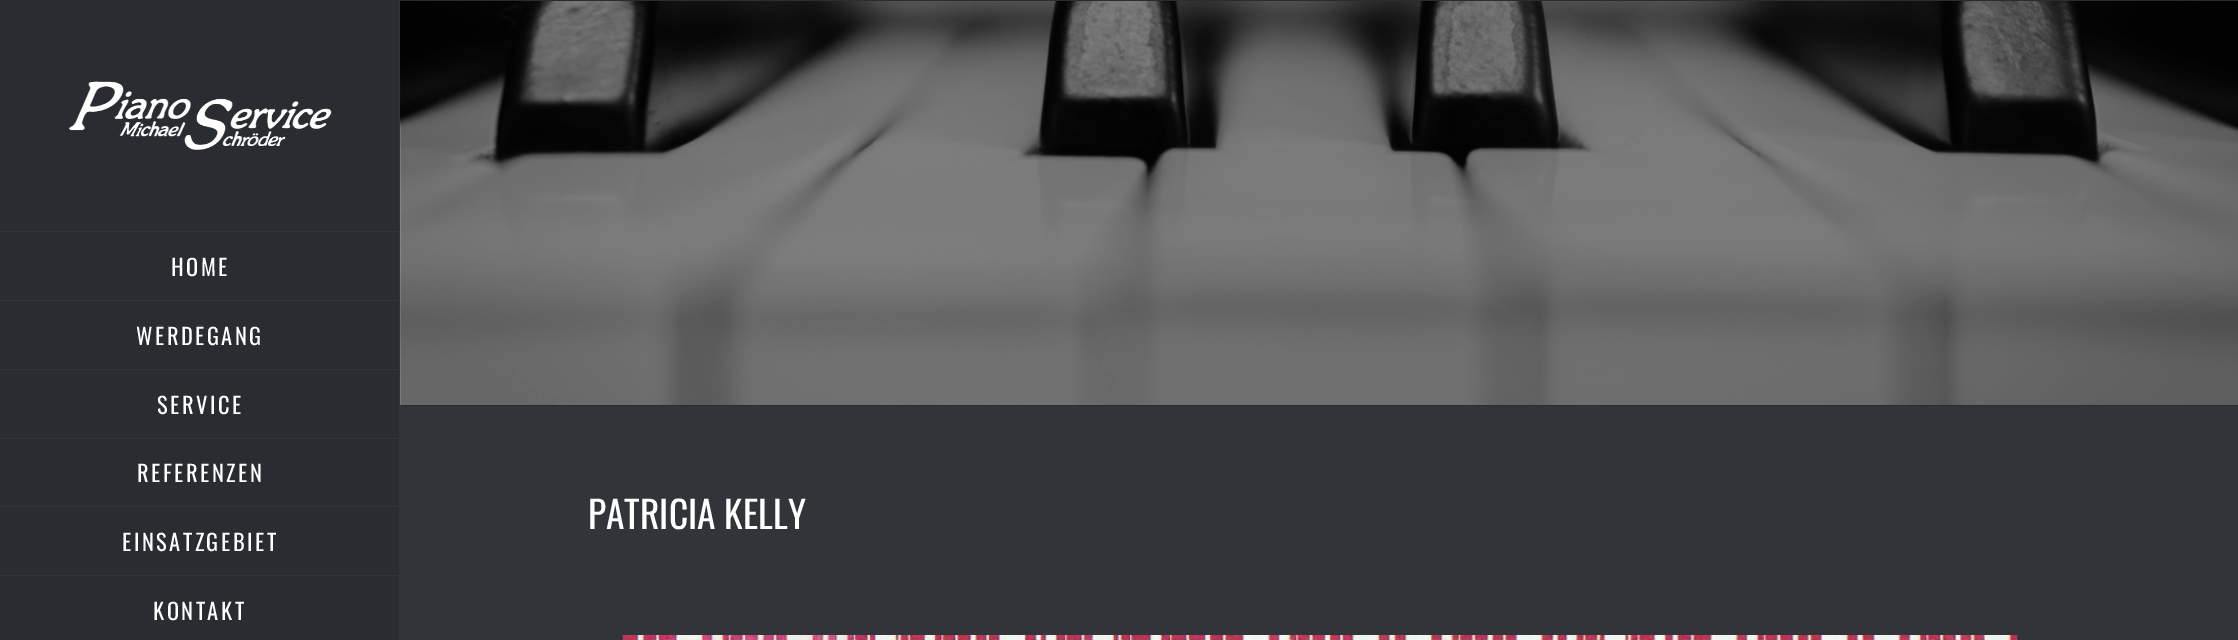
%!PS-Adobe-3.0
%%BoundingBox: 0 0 2238 640
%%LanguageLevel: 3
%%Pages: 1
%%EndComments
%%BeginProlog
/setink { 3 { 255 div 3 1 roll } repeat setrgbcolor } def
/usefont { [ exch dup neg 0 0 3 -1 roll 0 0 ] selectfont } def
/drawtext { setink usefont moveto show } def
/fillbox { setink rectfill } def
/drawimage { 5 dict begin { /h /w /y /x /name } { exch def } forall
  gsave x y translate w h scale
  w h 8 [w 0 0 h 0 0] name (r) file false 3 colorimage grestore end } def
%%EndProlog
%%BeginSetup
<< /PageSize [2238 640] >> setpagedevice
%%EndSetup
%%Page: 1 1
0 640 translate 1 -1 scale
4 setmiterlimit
0 0 2238 640 255 255 255 fillbox
0 0 399 640 41 44 48 fillbox
399 0 1 640 49 53 57 fillbox
(assets/img1.rgb) 69 81 263 69 drawimage
0 231 400 1 49 53 57 fillbox
0 300 400 1 49 53 57 fillbox
/Oswald-Regular 22.5 usefont
255 255 255 setink
171 276 moveto 2.5 0 (HOME) ashow
0 369 400 1 49 53 57 fillbox
255 255 255 setink
136 345 moveto 2.5 0 (WERDEGANG) ashow
0 438 400 1 49 53 57 fillbox
255 255 255 setink
157 414 moveto 2.5 0 (SERVICE) ashow
0 506 400 1 49 53 57 fillbox
255 255 255 setink
137 482 moveto 2.5 0 (REFERENZEN) ashow
0 575 400 1 49 53 57 fillbox
255 255 255 setink
122 551 moveto 2.5 0 (EINSATZGEBIET) ashow
153 620 moveto 2.5 0 (KONTAKT) ashow
(assets/img2.rgb) 400 1 1838 404 drawimage
400 0 1838 1 41 44 48 fillbox
400 405 1838 1 41 44 48 fillbox
400 406 1838 234 49 53 57 fillbox
(PATRICIA KELLY) 588 529 /Oswald-Regular 37.5 255 255 255 drawtext
(assets/img3.rgb) 622 635 1396 5 drawimage
showpage
%%EOF
